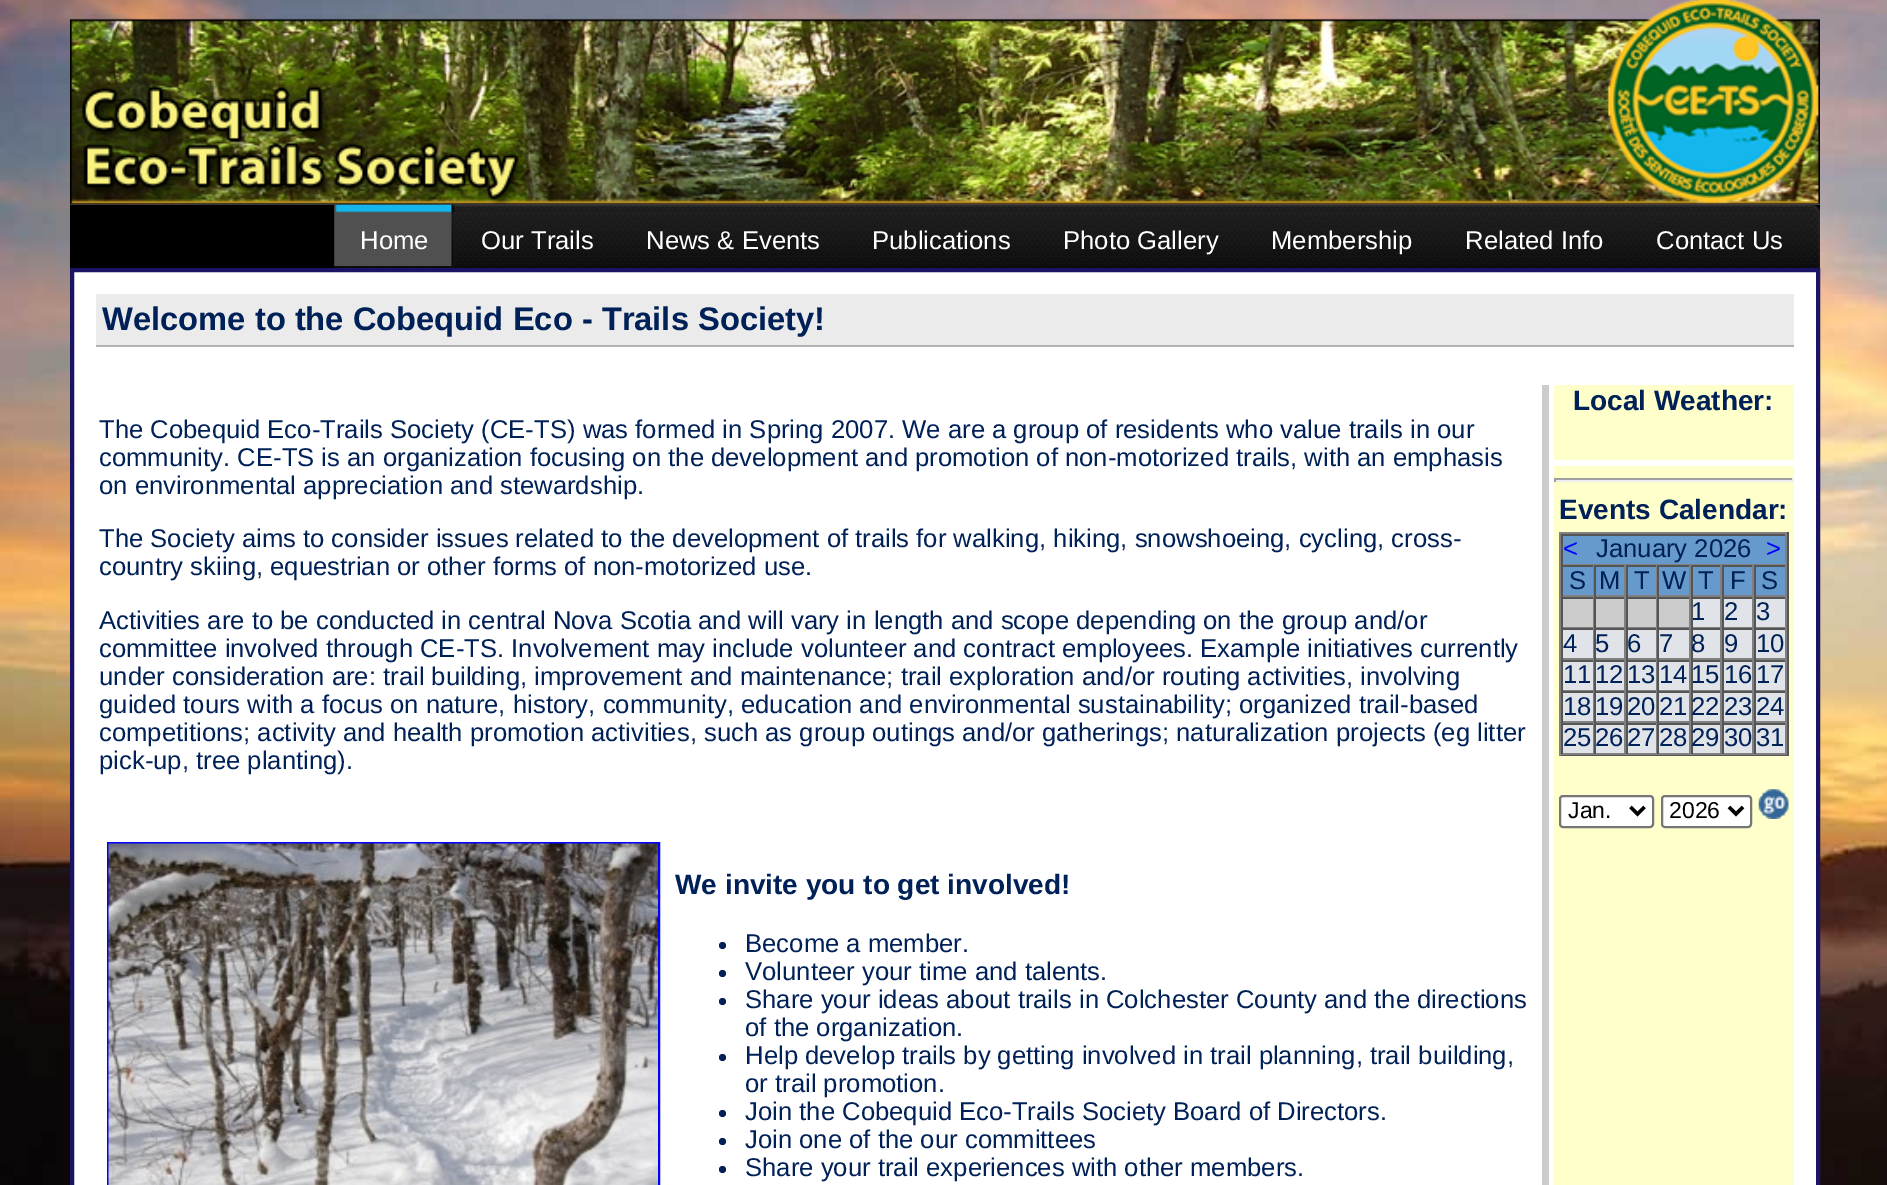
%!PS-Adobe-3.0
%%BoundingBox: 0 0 1887 1185
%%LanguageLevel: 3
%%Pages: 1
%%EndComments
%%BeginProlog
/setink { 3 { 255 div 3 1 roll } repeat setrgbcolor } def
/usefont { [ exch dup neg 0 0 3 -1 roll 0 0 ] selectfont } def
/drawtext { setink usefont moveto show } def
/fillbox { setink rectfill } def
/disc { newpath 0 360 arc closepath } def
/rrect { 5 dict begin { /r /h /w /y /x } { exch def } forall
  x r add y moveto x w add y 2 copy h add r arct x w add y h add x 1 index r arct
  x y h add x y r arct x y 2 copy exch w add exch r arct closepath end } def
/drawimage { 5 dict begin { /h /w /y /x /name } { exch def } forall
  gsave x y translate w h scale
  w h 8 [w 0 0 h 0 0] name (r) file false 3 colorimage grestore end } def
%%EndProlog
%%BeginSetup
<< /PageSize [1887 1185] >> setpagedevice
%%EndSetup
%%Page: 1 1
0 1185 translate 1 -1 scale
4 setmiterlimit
0 0 1887 1185 255 255 255 fillbox
(assets/img1.rgb) 0 0 1887 1185 drawimage
70 205 1750 63 0 0 0 fillbox
(assets/img3.rgb) 334 204 1486 64 drawimage
(assets/img2.rgb) 70 0 1750 205 drawimage
(assets/img4.rgb) 334 204 9 62 drawimage
(assets/img5.rgb) 343 204 112 62 drawimage
(Our Trails) 481 249 /LiberationSans-Regular 25.67 255 255 255 drawtext
(Publications) 872 249 /LiberationSans-Regular 25.67 255 255 255 drawtext
(Photo Gallery) 1063 249 /LiberationSans-Regular 25.67 255 255 255 drawtext
(Membership) 1271 249 /LiberationSans-Regular 25.67 255 255 255 drawtext
(Related Info) 1465 249 /LiberationSans-Regular 25.67 255 255 255 drawtext
(Home) 360 249 /LiberationSans-Regular 25.67 255 255 255 drawtext
(News & Events) 646 249 /LiberationSans-Regular 25.67 255 255 255 drawtext
(Contact Us) 1656 249 /LiberationSans-Regular 25.67 255 255 255 drawtext
74 272 1742 913 255 255 255 fillbox
27 20 100 setink
2 setlinewidth
71 269 1748 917 rectstroke
73 271 1744 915 rectstroke
96 294 1698 51 235 235 235 fillbox
96 345 1698 2 178 179 181 fillbox
(Welcome to the Cobequid Eco - Trails Society!) 102 330 /LiberationSans-Bold 32.7 0 33 87 drawtext
1542 385 7 800 204 204 204 fillbox
1554 385 240 75 255 255 204 fillbox
(Local Weather:) 1573 410 /LiberationSans-Bold 28 0 33 87 drawtext
(The Cobequid Eco-Trails Society \(CE-TS\) was formed in Spring 2007. We are a group of residents who value trails in our) 99 438 /LiberationSans-Regular 25.67 0 33 87 drawtext
(community. CE-TS is an organization focusing on the development and promotion of non-motorized trails, with an emphasis) 99 466 /LiberationSans-Regular 25.67 0 33 87 drawtext
(on environmental appreciation and stewardship.) 99 494 /LiberationSans-Regular 25.67 0 33 87 drawtext
(The Society aims to consider issues related to the development of trails for walking, hiking, snowshoeing, cycling, cross-) 99 547 /LiberationSans-Regular 25.67 0 33 87 drawtext
(country skiing, equestrian or other forms of non-motorized use.) 99 575 /LiberationSans-Regular 25.67 0 33 87 drawtext
(Activities are to be conducted in central Nova Scotia and will vary in length and scope depending on the group and/or) 99 629 /LiberationSans-Regular 25.67 0 33 87 drawtext
(committee involved through CE-TS. Involvement may include volunteer and contract employees. Example initiatives currently) 99 657 /LiberationSans-Regular 25.67 0 33 87 drawtext
(under consideration are: trail building, improvement and maintenance; trail exploration and/or routing activities, involving) 99 685 /LiberationSans-Regular 25.67 0 33 87 drawtext
(guided tours with a focus on nature, history, community, education and environmental sustainability; organized trail-based) 99 713 /LiberationSans-Regular 25.67 0 33 87 drawtext
(competitions; activity and health promotion activities, such as group outings and/or gatherings; naturalization projects \(eg litter) 99 741 /LiberationSans-Regular 25.67 0 33 87 drawtext
(pick-up, tree planting\).) 99 769 /LiberationSans-Regular 25.67 0 33 87 drawtext
0 0 255 setink
108 843 551 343 rectstroke
(assets/img6.rgb) 108 843 550 342 drawimage
(We invite you to get involved!) 675 894 /LiberationSans-Bold 28 0 33 87 drawtext
722.5 945.5 3.5 disc fill
(Become a member.) 745 952 /LiberationSans-Regular 25.67 0 33 87 drawtext
722.5 973.5 3.5 disc fill
(Volunteer your time and talents.) 745 980 /LiberationSans-Regular 25.67 0 33 87 drawtext
722.5 1001.5 3.5 disc fill
(Share your ideas about trails in Colchester County and the directions) 745 1008 /LiberationSans-Regular 25.67 0 33 87 drawtext
(of the organization.) 745 1036 /LiberationSans-Regular 25.67 0 33 87 drawtext
722.5 1057.5 3.5 disc fill
(Help develop trails by getting involved in trail planning, trail building,) 745 1064 /LiberationSans-Regular 25.67 0 33 87 drawtext
(or trail promotion.) 745 1092 /LiberationSans-Regular 25.67 0 33 87 drawtext
722.5 1113.5 3.5 disc fill
(Join the Cobequid Eco-Trails Society Board of Directors.) 745 1120 /LiberationSans-Regular 25.67 0 33 87 drawtext
722.5 1141.5 3.5 disc fill
(Join one of the our committees) 745 1148 /LiberationSans-Regular 25.67 0 33 87 drawtext
722.5 1169.5 3.5 disc fill
(Share your trail experiences with other members.) 745 1176 /LiberationSans-Regular 25.67 0 33 87 drawtext
1554 466 240 719 255 255 204 fillbox
1554 478 240 2 159 159 159 fillbox
1792 478 2 4 238 238 238 fillbox
1554 480 240 2 238 238 238 fillbox
1554 478 2 4 159 159 159 fillbox
(Events Calendar:) 1559 519 /LiberationSans-Bold 28 0 33 87 drawtext
1559 532 230 2 128 128 128 fillbox
1787 532 2 224 85 85 85 fillbox
1559 754 230 2 85 85 85 fillbox
1559 532 2 224 128 128 128 fillbox
1561 534 226 2 85 85 85 fillbox
1785 534 2 31 128 128 128 fillbox
1561 564 226 1 128 128 128 fillbox
1561 534 2 31 85 85 85 fillbox
1563 536 222 28 102 153 204 fillbox
(<) 1563 557 /LiberationSans-Regular 25.67 0 0 255 drawtext
(January 2026) 1596 557 /LiberationSans-Regular 25.67 0 33 87 drawtext
(>) 1766 557 /LiberationSans-Regular 25.67 0 0 255 drawtext
1563 567 30 28 102 153 204 fillbox
1561 565 226 2 85 85 85 fillbox
1593 565 1 32 128 128 128 fillbox
1561 595 33 2 128 128 128 fillbox
1561 565 2 32 85 85 85 fillbox
(S) 1569 589 /LiberationSans-Regular 25.67 0 33 87 drawtext
1596 567 28 28 102 153 204 fillbox
1624 565 2 32 128 128 128 fillbox
1594 595 32 2 128 128 128 fillbox
1594 565 2 32 85 85 85 fillbox
(M) 1599 589 /LiberationSans-Regular 25.67 0 33 87 drawtext
1628 567 28 28 102 153 204 fillbox
1656 565 1 32 128 128 128 fillbox
1626 595 31 2 128 128 128 fillbox
1626 565 2 32 85 85 85 fillbox
(T) 1634 589 /LiberationSans-Regular 25.67 0 33 87 drawtext
1659 567 30 28 102 153 204 fillbox
1689 565 2 32 128 128 128 fillbox
1657 595 34 2 128 128 128 fillbox
1657 565 2 32 85 85 85 fillbox
(W) 1662 589 /LiberationSans-Regular 25.67 0 33 87 drawtext
1693 567 27 28 102 153 204 fillbox
1720 565 2 32 128 128 128 fillbox
1691 595 31 2 128 128 128 fillbox
1691 565 2 32 85 85 85 fillbox
(T) 1698 589 /LiberationSans-Regular 25.67 0 33 87 drawtext
1724 567 28 28 102 153 204 fillbox
1752 565 2 32 128 128 128 fillbox
1722 595 32 2 128 128 128 fillbox
1722 565 2 32 85 85 85 fillbox
(F) 1730 589 /LiberationSans-Regular 25.67 0 33 87 drawtext
1756 567 29 28 102 153 204 fillbox
1785 565 2 32 128 128 128 fillbox
1754 595 33 2 128 128 128 fillbox
1754 565 2 32 85 85 85 fillbox
(S) 1761 589 /LiberationSans-Regular 25.67 0 33 87 drawtext
1563 599 30 28 204 204 204 fillbox
1561 597 226 2 85 85 85 fillbox
1593 597 1 31 128 128 128 fillbox
1561 627 33 1 128 128 128 fillbox
1561 597 2 31 85 85 85 fillbox
1596 599 28 28 204 204 204 fillbox
1624 597 2 31 128 128 128 fillbox
1594 627 32 1 128 128 128 fillbox
1594 597 2 31 85 85 85 fillbox
1628 599 28 28 204 204 204 fillbox
1656 597 1 31 128 128 128 fillbox
1626 627 31 1 128 128 128 fillbox
1626 597 2 31 85 85 85 fillbox
1659 599 30 28 204 204 204 fillbox
1689 597 2 31 128 128 128 fillbox
1657 627 34 1 128 128 128 fillbox
1657 597 2 31 85 85 85 fillbox
1693 599 27 28 224 228 233 fillbox
1720 597 2 31 128 128 128 fillbox
1691 627 31 1 128 128 128 fillbox
1691 597 2 31 85 85 85 fillbox
(1) 1691 620 /LiberationSans-Regular 25.67 0 33 87 drawtext
1724 599 28 28 224 228 233 fillbox
1752 597 2 31 128 128 128 fillbox
1722 627 32 1 128 128 128 fillbox
1722 597 2 31 85 85 85 fillbox
(2) 1724 620 /LiberationSans-Regular 25.67 0 33 87 drawtext
1756 599 29 28 224 228 233 fillbox
1785 597 2 31 128 128 128 fillbox
1754 627 33 1 128 128 128 fillbox
1754 597 2 31 85 85 85 fillbox
(3) 1756 620 /LiberationSans-Regular 25.67 0 33 87 drawtext
1563 630 30 28 224 228 233 fillbox
1561 628 226 2 85 85 85 fillbox
1593 628 1 32 128 128 128 fillbox
1561 658 33 2 128 128 128 fillbox
1561 628 2 32 85 85 85 fillbox
(4) 1563 652 /LiberationSans-Regular 25.67 0 33 87 drawtext
1596 630 28 28 224 228 233 fillbox
1624 628 2 32 128 128 128 fillbox
1594 658 32 2 128 128 128 fillbox
1594 628 2 32 85 85 85 fillbox
(5) 1595 652 /LiberationSans-Regular 25.67 0 33 87 drawtext
1628 630 28 28 224 228 233 fillbox
1656 628 1 32 128 128 128 fillbox
1626 658 31 2 128 128 128 fillbox
1626 628 2 32 85 85 85 fillbox
(6) 1627 652 /LiberationSans-Regular 25.67 0 33 87 drawtext
1659 630 30 28 224 228 233 fillbox
1689 628 2 32 128 128 128 fillbox
1657 658 34 2 128 128 128 fillbox
1657 628 2 32 85 85 85 fillbox
(7) 1659 652 /LiberationSans-Regular 25.67 0 33 87 drawtext
1693 630 27 28 224 228 233 fillbox
1720 628 2 32 128 128 128 fillbox
1691 658 31 2 128 128 128 fillbox
1691 628 2 32 85 85 85 fillbox
(8) 1691 652 /LiberationSans-Regular 25.67 0 33 87 drawtext
1724 630 28 28 224 228 233 fillbox
1752 628 2 32 128 128 128 fillbox
1722 658 32 2 128 128 128 fillbox
1722 628 2 32 85 85 85 fillbox
(9) 1724 652 /LiberationSans-Regular 25.67 0 33 87 drawtext
1756 630 29 28 224 228 233 fillbox
1785 628 2 32 128 128 128 fillbox
1754 658 33 2 128 128 128 fillbox
1754 628 2 32 85 85 85 fillbox
(10) 1756 652 /LiberationSans-Regular 25.67 0 33 87 drawtext
1563 662 30 28 224 228 233 fillbox
1561 660 226 2 85 85 85 fillbox
1593 660 1 31 128 128 128 fillbox
1561 690 33 1 128 128 128 fillbox
1561 660 2 31 85 85 85 fillbox
(11) 1563 683 /LiberationSans-Regular 25.67 0 33 87 drawtext
1596 662 28 28 224 228 233 fillbox
1624 660 2 31 128 128 128 fillbox
1594 690 32 1 128 128 128 fillbox
1594 660 2 31 85 85 85 fillbox
(12) 1595 683 /LiberationSans-Regular 25.67 0 33 87 drawtext
1628 662 28 28 224 228 233 fillbox
1656 660 1 31 128 128 128 fillbox
1626 690 31 1 128 128 128 fillbox
1626 660 2 31 85 85 85 fillbox
(13) 1627 683 /LiberationSans-Regular 25.67 0 33 87 drawtext
1659 662 30 28 224 228 233 fillbox
1689 660 2 31 128 128 128 fillbox
1657 690 34 1 128 128 128 fillbox
1657 660 2 31 85 85 85 fillbox
(14) 1659 683 /LiberationSans-Regular 25.67 0 33 87 drawtext
1693 662 27 28 224 228 233 fillbox
1720 660 2 31 128 128 128 fillbox
1691 690 31 1 128 128 128 fillbox
1691 660 2 31 85 85 85 fillbox
(15) 1691 683 /LiberationSans-Regular 25.67 0 33 87 drawtext
1724 662 28 28 224 228 233 fillbox
1752 660 2 31 128 128 128 fillbox
1722 690 32 1 128 128 128 fillbox
1722 660 2 31 85 85 85 fillbox
(16) 1724 683 /LiberationSans-Regular 25.67 0 33 87 drawtext
1756 662 29 28 224 228 233 fillbox
1785 660 2 31 128 128 128 fillbox
1754 690 33 1 128 128 128 fillbox
1754 660 2 31 85 85 85 fillbox
(17) 1756 683 /LiberationSans-Regular 25.67 0 33 87 drawtext
1563 693 30 28 224 228 233 fillbox
1561 691 226 2 85 85 85 fillbox
1593 691 1 32 128 128 128 fillbox
1561 721 33 2 128 128 128 fillbox
1561 691 2 32 85 85 85 fillbox
(18) 1563 715 /LiberationSans-Regular 25.67 0 33 87 drawtext
1596 693 28 28 224 228 233 fillbox
1624 691 2 32 128 128 128 fillbox
1594 721 32 2 128 128 128 fillbox
1594 691 2 32 85 85 85 fillbox
(19) 1595 715 /LiberationSans-Regular 25.67 0 33 87 drawtext
1628 693 28 28 224 228 233 fillbox
1656 691 1 32 128 128 128 fillbox
1626 721 31 2 128 128 128 fillbox
1626 691 2 32 85 85 85 fillbox
(20) 1627 715 /LiberationSans-Regular 25.67 0 33 87 drawtext
1659 693 30 28 224 228 233 fillbox
1689 691 2 32 128 128 128 fillbox
1657 721 34 2 128 128 128 fillbox
1657 691 2 32 85 85 85 fillbox
(21) 1659 715 /LiberationSans-Regular 25.67 0 33 87 drawtext
1693 693 27 28 224 228 233 fillbox
1720 691 2 32 128 128 128 fillbox
1691 721 31 2 128 128 128 fillbox
1691 691 2 32 85 85 85 fillbox
(22) 1691 715 /LiberationSans-Regular 25.67 0 33 87 drawtext
1724 693 28 28 224 228 233 fillbox
1752 691 2 32 128 128 128 fillbox
1722 721 32 2 128 128 128 fillbox
1722 691 2 32 85 85 85 fillbox
(23) 1724 715 /LiberationSans-Regular 25.67 0 33 87 drawtext
1756 693 29 28 224 228 233 fillbox
1785 691 2 32 128 128 128 fillbox
1754 721 33 2 128 128 128 fillbox
1754 691 2 32 85 85 85 fillbox
(24) 1756 715 /LiberationSans-Regular 25.67 0 33 87 drawtext
1563 725 30 28 224 228 233 fillbox
1561 723 226 2 85 85 85 fillbox
1593 723 1 31 128 128 128 fillbox
1561 753 33 2 128 128 128 fillbox
1561 723 2 31 85 85 85 fillbox
(25) 1563 746 /LiberationSans-Regular 25.67 0 33 87 drawtext
1596 725 28 28 224 228 233 fillbox
1624 723 2 31 128 128 128 fillbox
1594 753 32 2 128 128 128 fillbox
1594 723 2 31 85 85 85 fillbox
(26) 1595 746 /LiberationSans-Regular 25.67 0 33 87 drawtext
1628 725 28 28 224 228 233 fillbox
1656 723 1 31 128 128 128 fillbox
1626 753 31 2 128 128 128 fillbox
1626 723 2 31 85 85 85 fillbox
(27) 1627 746 /LiberationSans-Regular 25.67 0 33 87 drawtext
1659 725 30 28 224 228 233 fillbox
1689 723 2 31 128 128 128 fillbox
1657 753 34 2 128 128 128 fillbox
1657 723 2 31 85 85 85 fillbox
(28) 1659 746 /LiberationSans-Regular 25.67 0 33 87 drawtext
1693 725 27 28 224 228 233 fillbox
1720 723 2 31 128 128 128 fillbox
1691 753 31 2 128 128 128 fillbox
1691 723 2 31 85 85 85 fillbox
(29) 1691 746 /LiberationSans-Regular 25.67 0 33 87 drawtext
1724 725 28 28 224 228 233 fillbox
1752 723 2 31 128 128 128 fillbox
1722 753 32 2 128 128 128 fillbox
1722 723 2 31 85 85 85 fillbox
(30) 1724 746 /LiberationSans-Regular 25.67 0 33 87 drawtext
1756 725 29 28 224 228 233 fillbox
1785 723 2 31 128 128 128 fillbox
1754 753 33 2 128 128 128 fillbox
1754 723 2 31 85 85 85 fillbox
(31) 1756 746 /LiberationSans-Regular 25.67 0 33 87 drawtext
255 255 255 setink
1560 796 93 31 3 rrect gsave fill grestore
118 118 118 setink
stroke
0 0 0 setink
3.5 setlinewidth
1630.5 807 moveto 1637.5 814 lineto 1644.5 807 lineto stroke
(Jan.) 1568 818 /LiberationSans-Regular 23 0 0 0 drawtext
255 255 255 setink
1662 796 89 31 3 rrect gsave fill grestore
118 118 118 setink
2 setlinewidth
stroke
0 0 0 setink
3.5 setlinewidth
1729 807 moveto 1736 814 lineto 1743 807 lineto stroke
(2026) 1669 818 /LiberationSans-Regular 23 0 0 0 drawtext
(assets/img7.rgb) 1758 789 31 30 drawimage
showpage
%%EOF
